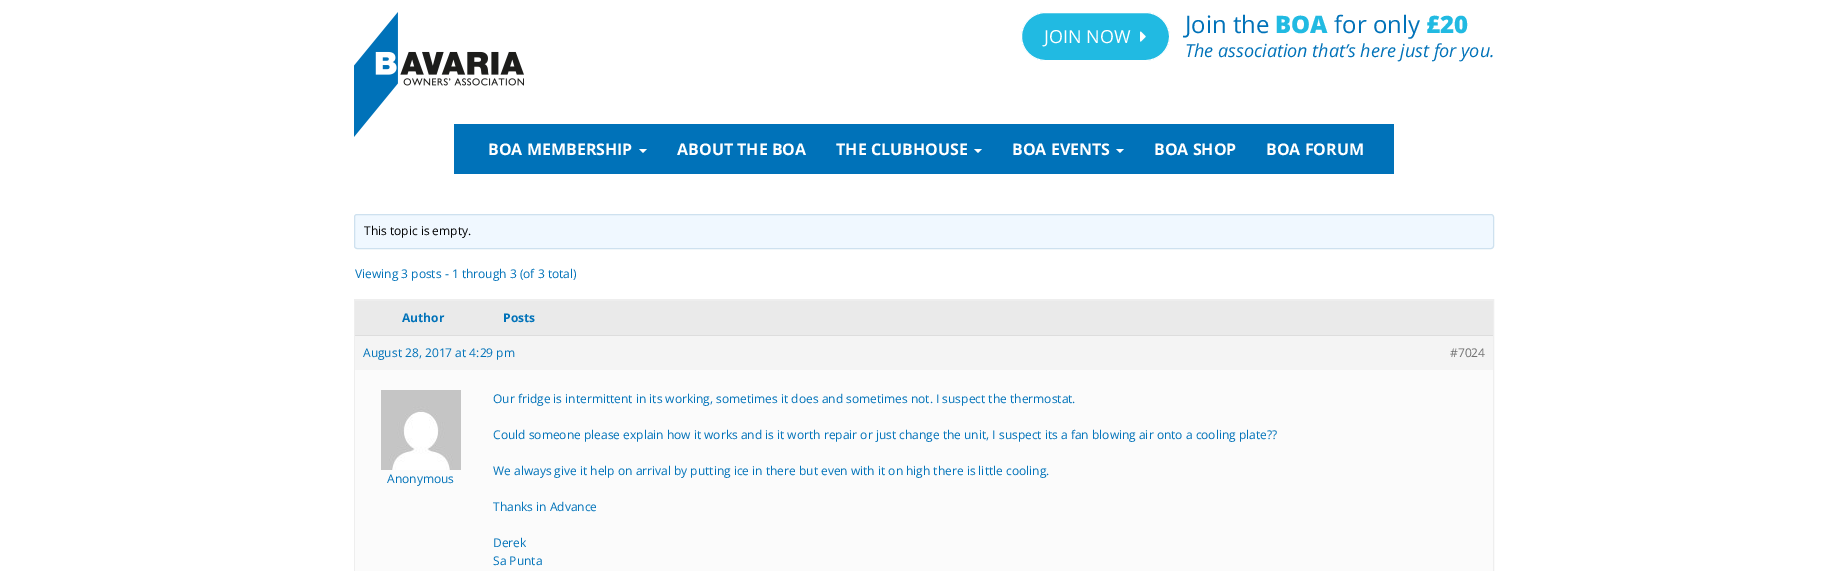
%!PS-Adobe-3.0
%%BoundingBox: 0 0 1848 571
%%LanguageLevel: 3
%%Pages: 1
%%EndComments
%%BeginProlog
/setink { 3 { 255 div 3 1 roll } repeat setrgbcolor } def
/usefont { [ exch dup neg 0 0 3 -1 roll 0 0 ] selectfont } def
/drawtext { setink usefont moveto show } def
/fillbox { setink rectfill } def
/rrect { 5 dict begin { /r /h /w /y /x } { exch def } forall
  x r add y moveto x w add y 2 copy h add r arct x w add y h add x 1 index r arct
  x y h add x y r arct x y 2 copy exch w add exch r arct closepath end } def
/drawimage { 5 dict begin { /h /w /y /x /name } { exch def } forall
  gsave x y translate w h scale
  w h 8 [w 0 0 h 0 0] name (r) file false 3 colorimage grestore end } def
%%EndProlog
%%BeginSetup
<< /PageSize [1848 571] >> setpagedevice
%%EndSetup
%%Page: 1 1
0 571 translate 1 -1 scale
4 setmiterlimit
0 0 1848 571 255 255 255 fillbox
(assets/img1.rgb) 354 12 170 125 drawimage
33 186 226 setink
1021.5 12.5 148 48 24 rrect gsave fill grestore
255 255 255 setink
stroke
(JOIN NOW) 1044 43 /OpenSans-Regular 18 255 255 255 drawtext
(assets/img2.rgb) 1140 31 6 11 drawimage
(Join the) 1185 33 /OpenSans-Regular 24 0 114 185 drawtext
(BOA) 1275 33 /OpenSans-ExtraBold 24 33 186 226 drawtext
(for only) 1334 33 /OpenSans-Regular 24 0 114 185 drawtext
(£20) 1426 33 /OpenSans-ExtraBold 24 33 186 226 drawtext
(The association that’s here just for you.) 1185 57 /OpenSans-Italic 18 0 114 185 drawtext
454 124 940 50 0 114 185 fillbox
(BOA MEMBERSHIP) 488 155 /OpenSans-Bold 16 255 255 255 drawtext
639 149 moveto 647 149 lineto 643 153 lineto closepath fill
(ABOUT THE BOA) 677 155 /OpenSans-Bold 16 255 255 255 drawtext
(THE CLUBHOUSE) 836 155 /OpenSans-Bold 16 255 255 255 drawtext
974 149 moveto 982 149 lineto 978 153 lineto closepath fill
(BOA EVENTS) 1012 155 /OpenSans-Bold 16 255 255 255 drawtext
1116 149 moveto 1124 149 lineto 1120 153 lineto closepath fill
(BOA SHOP) 1154 155 /OpenSans-Bold 16 255 255 255 drawtext
(BOA FORUM) 1266 155 /OpenSans-Bold 16 255 255 255 drawtext
240 248 255 setink
354.5 214.5 1139 34 2.5 rrect gsave fill grestore
206 225 239 setink
stroke
(This topic is empty.) 364 235 /OpenSans-Regular 12 0 0 0 drawtext
(Viewing 3 posts - 1 through 3 \(of 3 total\)) 355 278 /OpenSans-Regular 12 0 114 185 drawtext
238 238 238 setink
354.5 299.5 1139 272 rectstroke
355 301 1138 34 234 234 234 fillbox
355 300 1138 1 238 238 238 fillbox
(Author) 402 322 /OpenSans-Bold 12 0 114 185 drawtext
(Posts) 503 322 /OpenSans-Bold 12 0 114 185 drawtext
355 336 1138 34 244 244 244 fillbox
355 335 1138 1 221 221 221 fillbox
(August 28, 2017 at 4:29 pm) 363 357 /OpenSans-Regular 12 0 114 185 drawtext
(#7024) 1450 357 /OpenSans-Regular 12 112 112 112 drawtext
355 370 1138 201 251 251 251 fillbox
(assets/img3.rgb) 381 390 80 80 drawimage
(Anonymous) 387 483 /OpenSans-Regular 12 0 114 185 drawtext
(Our fridge is intermittent in its working, sometimes it does and sometimes not. I suspect the thermostat.) 493 403 /OpenSans-Regular 12 0 114 185 drawtext
(Could someone please explain how it works and is it worth repair or just change the unit, I suspect its a fan blowing air onto a cooling plate??) 493 439 /OpenSans-Regular 12 0 114 185 drawtext
(We always give it help on arrival by putting ice in there but even with it on high there is little cooling.) 493 475 /OpenSans-Regular 12 0 114 185 drawtext
(Thanks in Advance) 493 511 /OpenSans-Regular 12 0 114 185 drawtext
(Derek) 493 547 /OpenSans-Regular 12 0 114 185 drawtext
(Sa Punta) 493 565 /OpenSans-Regular 12 0 114 185 drawtext
showpage
%%EOF
